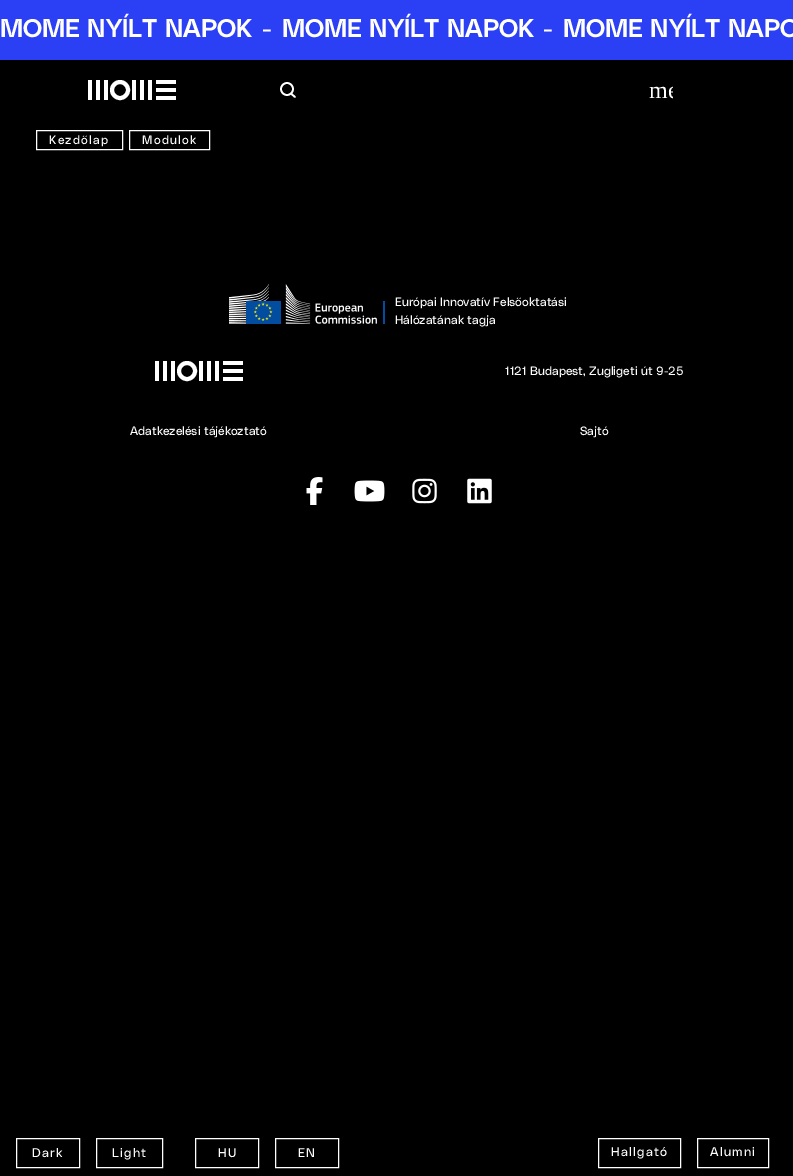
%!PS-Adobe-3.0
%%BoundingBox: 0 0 793 1176
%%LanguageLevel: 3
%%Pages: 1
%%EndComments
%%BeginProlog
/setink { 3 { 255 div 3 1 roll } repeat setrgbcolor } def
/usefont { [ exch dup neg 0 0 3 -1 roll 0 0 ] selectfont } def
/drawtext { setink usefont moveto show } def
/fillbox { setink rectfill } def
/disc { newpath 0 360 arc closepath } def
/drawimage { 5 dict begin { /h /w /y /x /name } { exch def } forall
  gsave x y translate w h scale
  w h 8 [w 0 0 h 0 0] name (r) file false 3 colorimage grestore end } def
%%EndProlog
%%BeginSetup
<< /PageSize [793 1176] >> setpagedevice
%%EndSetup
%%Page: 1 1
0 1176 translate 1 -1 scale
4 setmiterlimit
0 0 793 1176 0 0 0 fillbox
0 0 793 60 43 63 245 fillbox
(MOME NYÍLT NAPOK) 0 37 /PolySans-SemiBold 25.4 255 255 255 drawtext
(-) 262 37 /PolySans-SemiBold 25.4 255 255 255 drawtext
(MOME NYÍLT NAPOK) 282 37 /PolySans-SemiBold 25.4 255 255 255 drawtext
(-) 543 37 /PolySans-SemiBold 25.4 255 255 255 drawtext
(MOME NYÍLT NAPO) 563 37 /PolySans-SemiBold 25.4 255 255 255 drawtext
88 80 4 20 255 255 255 fillbox
96 80 4 20 255 255 255 fillbox
104 80 4 20 255 255 255 fillbox
4 setlinewidth
120 90 8 disc stroke
132 80 4 20 255 255 255 fillbox
140 80 4 20 255 255 255 fillbox
148 80 4 20 255 255 255 fillbox
156 80 20 4 255 255 255 fillbox
156 88 20 4 255 255 255 fillbox
156 96 20 4 255 255 255 fillbox
1.7 setlinewidth
287 89 6 disc stroke
1 setlinecap
1 setlinejoin
291.5 94 moveto 295 97 lineto stroke
gsave
649 78 24 24 rectclip
(me) 649 98 /LiberationSerif-Regular 24 255 255 255 drawtext
grestore
1 setlinewidth
0 setlinecap
0 setlinejoin
36.5 130.5 86 19 rectstroke
/PolySans-Regular 12 usefont
49 144 moveto 1.25 0 (Kezdőlap) ashow
129.5 130.5 80 19 rectstroke
142 144 moveto 1.25 0 (Modulok) ashow
(assets/img1.rgb) 229 284 156 40 drawimage
(Európai Innovatív Felsőoktatási) 395 306 /PolySans-Regular 12 255 255 255 drawtext
(Hálózatának tagja) 395 324 /PolySans-Regular 12 255 255 255 drawtext
155 361 4 20 255 255 255 fillbox
163 361 4 20 255 255 255 fillbox
171 361 4 20 255 255 255 fillbox
4 setlinewidth
187 371 8 disc stroke
199 361 4 20 255 255 255 fillbox
207 361 4 20 255 255 255 fillbox
215 361 4 20 255 255 255 fillbox
223 361 20 4 255 255 255 fillbox
223 369 20 4 255 255 255 fillbox
223 377 20 4 255 255 255 fillbox
(1121 Budapest, Zugligeti út 9-25) 505 375 /PolySans-Regular 12 255 255 255 drawtext
(Adatkezelési tájékoztató) 130 435 /PolySans-Regular 12 255 255 255 drawtext
(Sajtó) 580 435 /PolySans-Regular 12 255 255 255 drawtext
(assets/img2.rgb) 306 477 17 28 drawimage
(assets/img3.rgb) 354 480 31 22 drawimage
(assets/img4.rgb) 412 478 25 26 drawimage
(assets/img5.rgb) 467 478 25 26 drawimage
1 setlinewidth
16.5 1138.5 63 29 rectstroke
/PolySans-Regular 12.5 usefont
32 1157 moveto 1.25 0 (Dark) ashow
96.5 1138.5 66 29 rectstroke
112 1157 moveto 1.25 0 (Light) ashow
195.5 1138.5 63 29 rectstroke
218 1157 moveto 1.25 0 (HU) ashow
275.5 1138.5 63 29 rectstroke
298 1157 moveto 1.25 0 (EN) ashow
598.5 1138.5 82 29 rectstroke
611 1156 moveto 1.25 0 (Hallgató) ashow
697.5 1138.5 71 29 rectstroke
710 1156 moveto 1.25 0 (Alumni) ashow
showpage
%%EOF
